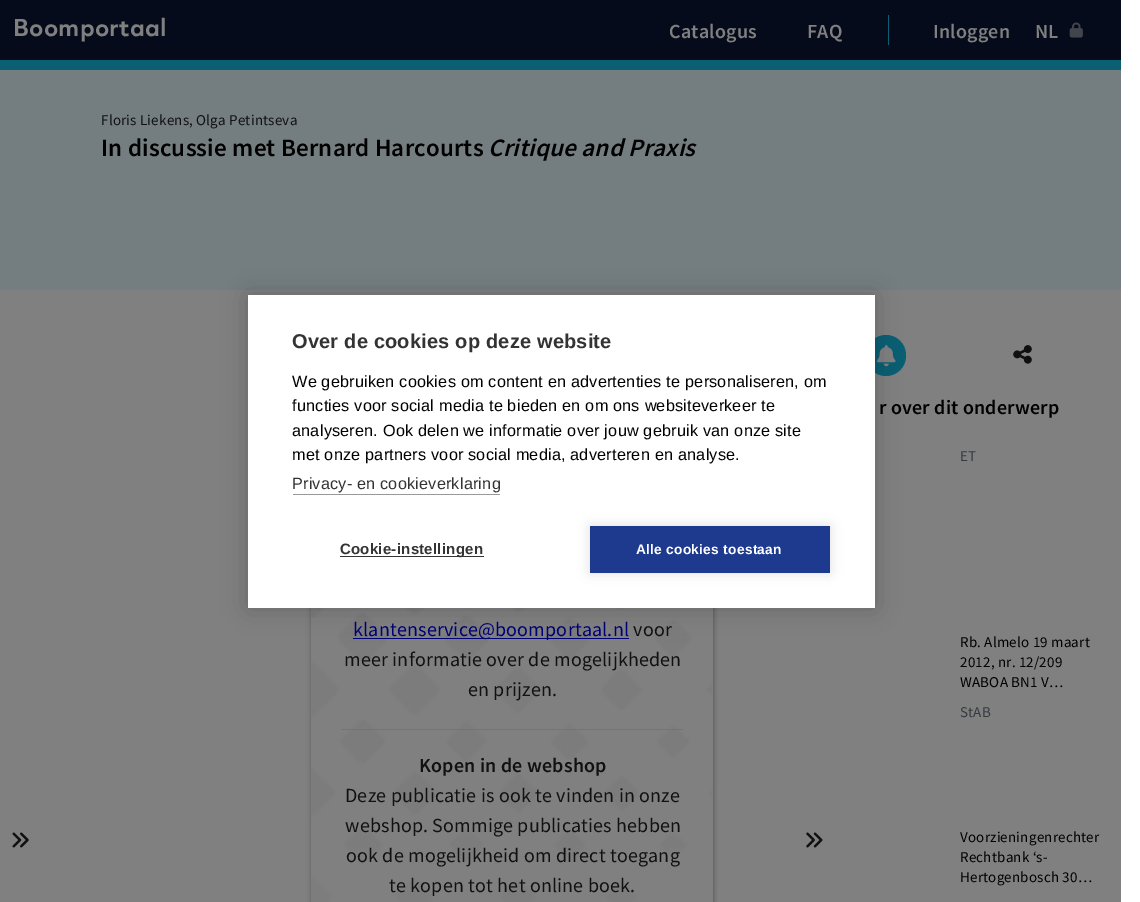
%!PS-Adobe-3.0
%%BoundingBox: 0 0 1140 902
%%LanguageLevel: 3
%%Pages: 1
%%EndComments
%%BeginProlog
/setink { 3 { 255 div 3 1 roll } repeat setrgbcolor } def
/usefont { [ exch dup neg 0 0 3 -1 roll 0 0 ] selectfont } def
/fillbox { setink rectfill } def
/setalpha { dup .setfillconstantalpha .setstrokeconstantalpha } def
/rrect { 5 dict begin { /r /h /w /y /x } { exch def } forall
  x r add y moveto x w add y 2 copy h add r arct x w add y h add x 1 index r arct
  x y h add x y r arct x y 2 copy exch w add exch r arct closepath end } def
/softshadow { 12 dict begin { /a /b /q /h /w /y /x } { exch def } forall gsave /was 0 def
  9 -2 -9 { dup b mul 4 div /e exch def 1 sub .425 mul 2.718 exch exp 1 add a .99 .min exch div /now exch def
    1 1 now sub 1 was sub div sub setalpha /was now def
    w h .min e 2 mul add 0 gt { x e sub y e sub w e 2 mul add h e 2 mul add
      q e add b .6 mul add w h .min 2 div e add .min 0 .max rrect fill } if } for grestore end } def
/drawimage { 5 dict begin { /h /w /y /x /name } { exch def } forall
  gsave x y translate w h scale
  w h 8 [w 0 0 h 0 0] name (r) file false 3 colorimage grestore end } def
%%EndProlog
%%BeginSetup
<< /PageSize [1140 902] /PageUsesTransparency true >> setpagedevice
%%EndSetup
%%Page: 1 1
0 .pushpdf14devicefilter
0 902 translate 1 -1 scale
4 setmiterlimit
0 0 1140 902 255 255 255 fillbox
0 290 1121 612 128 128 128 fillbox
0 0 1121 60 6 11 27 fillbox
/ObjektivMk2-Bold 22.5 usefont
128 128 128 setink
13 36 moveto 0.2 0 (Boomportaal) ashow
/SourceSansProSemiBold-SemiBold 20 usefont
669 38 moveto 0.2 0 (Catalogus) ashow
807 38 moveto 0.2 0 (FAQ) ashow
888 15 1 30 10 95 115 fillbox
128 128 128 setink
933 38 moveto 0.2 0 (Inloggen) ashow
1035 38 moveto 0.2 0 (NL) ashow
(assets/img1.rgb) 1069 22 14 16 drawimage
0 60 1121 10 10 95 115 fillbox
0 70 1121 220 116 125 127 fillbox
/SourceSansPro-Regular 15 usefont
17 17 17 setink
101 125 moveto 0.2 0 (Floris Liekens, Olga Petintseva) ashow
/SourceSansProSemiBold-SemiBold 25 usefont
0 0 0 setink
101 156 moveto 0.2 0 (In discussie met Bernard Harcourts) ashow
/SourceSansProSemiBold-SemiBoldItalic 25 usefont
488 156 moveto 0.2 0 (Critique and Praxis) ashow
(assets/img2.rgb) 12 832 17 16 drawimage
18 18 18 setink
313 355 401 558 5 2 0.2 softshadow
74 74 74 setink
311 355 402 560 5 2.5 0.5 softshadow
311 608 402 294 128 128 128 fillbox
(assets/img3.rgb) 311 608 402 294 drawimage
353 638 276 1 0 0 119 fillbox
/SourceSansPro-Regular 20 usefont
353 636 moveto 0.2 0 (klantenservice@boomportaal.nl) ashow
17 17 17 setink
633 636 moveto 0.2 0 (voor) ashow
344 666 moveto 0.2 0 (meer informatie over de mogelijkheden) ashow
468 696 moveto 0.2 0 (en prijzen.) ashow
341 729 342 1 115 116 118 fillbox
/SourceSansProSemiBold-SemiBold 20 usefont
17 17 17 setink
419 772 moveto 0.2 0 (Kopen in de webshop) ashow
/SourceSansPro-Regular 20 usefont
345 802 moveto 0.2 0 (Deze publicatie is ook te vinden in onze) ashow
345 832 moveto 0.2 0 (webshop. Sommige publicaties hebben) ashow
346 862 moveto 0.2 0 (ook de mogelijkheid om direct toegang) ashow
389 892 moveto 0.2 0 (te kopen tot het online boek.) ashow
(assets/img4.rgb) 806 832 17 16 drawimage
10 95 115 setink
866 335 40 41 20 rrect fill
(assets/img5.rgb) 877 345 19 22 drawimage
(assets/img6.rgb) 1013 345 19 19 drawimage
/SourceSansProSemiBold-SemiBold 20 usefont
0 0 0 setink
879 414 moveto 0.2 0 (r over dit onderwerp) ashow
/SourceSansPro-Regular 15 usefont
54 57 64 setink
960 461 moveto 0.2 0 (ET) ashow
0 0 0 setink
960 647 moveto 0.2 0 (Rb. Almelo 19 maart) ashow
960 667 moveto 0.2 0 (2012, nr. 12/209) ashow
960 687 moveto 0.2 0 (WABOA BN1 V…) ashow
54 57 64 setink
960 717 moveto 0.2 0 (StAB) ashow
0 0 0 setink
960 842 moveto 0.2 0 (Voorzieningenrechter) ashow
960 862 moveto 0.2 0 (Rechtbank ‘s-) ashow
960 882 moveto 0.2 0 (Hertogenbosch 30…) ashow
248 295 627 313 0 12.5 0.2 softshadow
248 295 627 313 255 255 255 fillbox
/LiberationSans-Bold 20 usefont
51 51 51 setink
292 348 moveto 0.2 0 (Over de cookies op deze website) ashow
/LiberationSans-Regular 16.25 usefont
0 0 0 setink
292 387 moveto 0.2 0 (We gebruiken cookies om content en advertenties te personaliseren, om) ashow
292 411 moveto 0.2 0 (functies voor social media te bieden en om ons websiteverkeer te) ashow
292 436 moveto 0.2 0 (analyseren. Ook delen we informatie over jouw gebruik van onze site) ashow
292 460 moveto 0.2 0 (met onze partners voor social media, adverteren en analyse.) ashow
51 51 51 setink
292 489 moveto 0.2 0 (Privacy- en cookieverklaring) ashow
293 494 207 1 153 153 153 fillbox
340 556 144 1 51 51 51 fillbox
/LiberationSans-Bold 15 usefont
340 554 moveto 0.25 0 (Cookie-instellingen) ashow
0 0 0 setink
590 526 240 47 0 6 0.12 softshadow
590 526 240 47 30 58 143 fillbox
/LiberationSans-Bold 13.75 usefont
255 255 255 setink
636 554 moveto 0.25 0 (Alle cookies toestaan) ashow
.poppdf14devicefilter showpage
%%EOF
